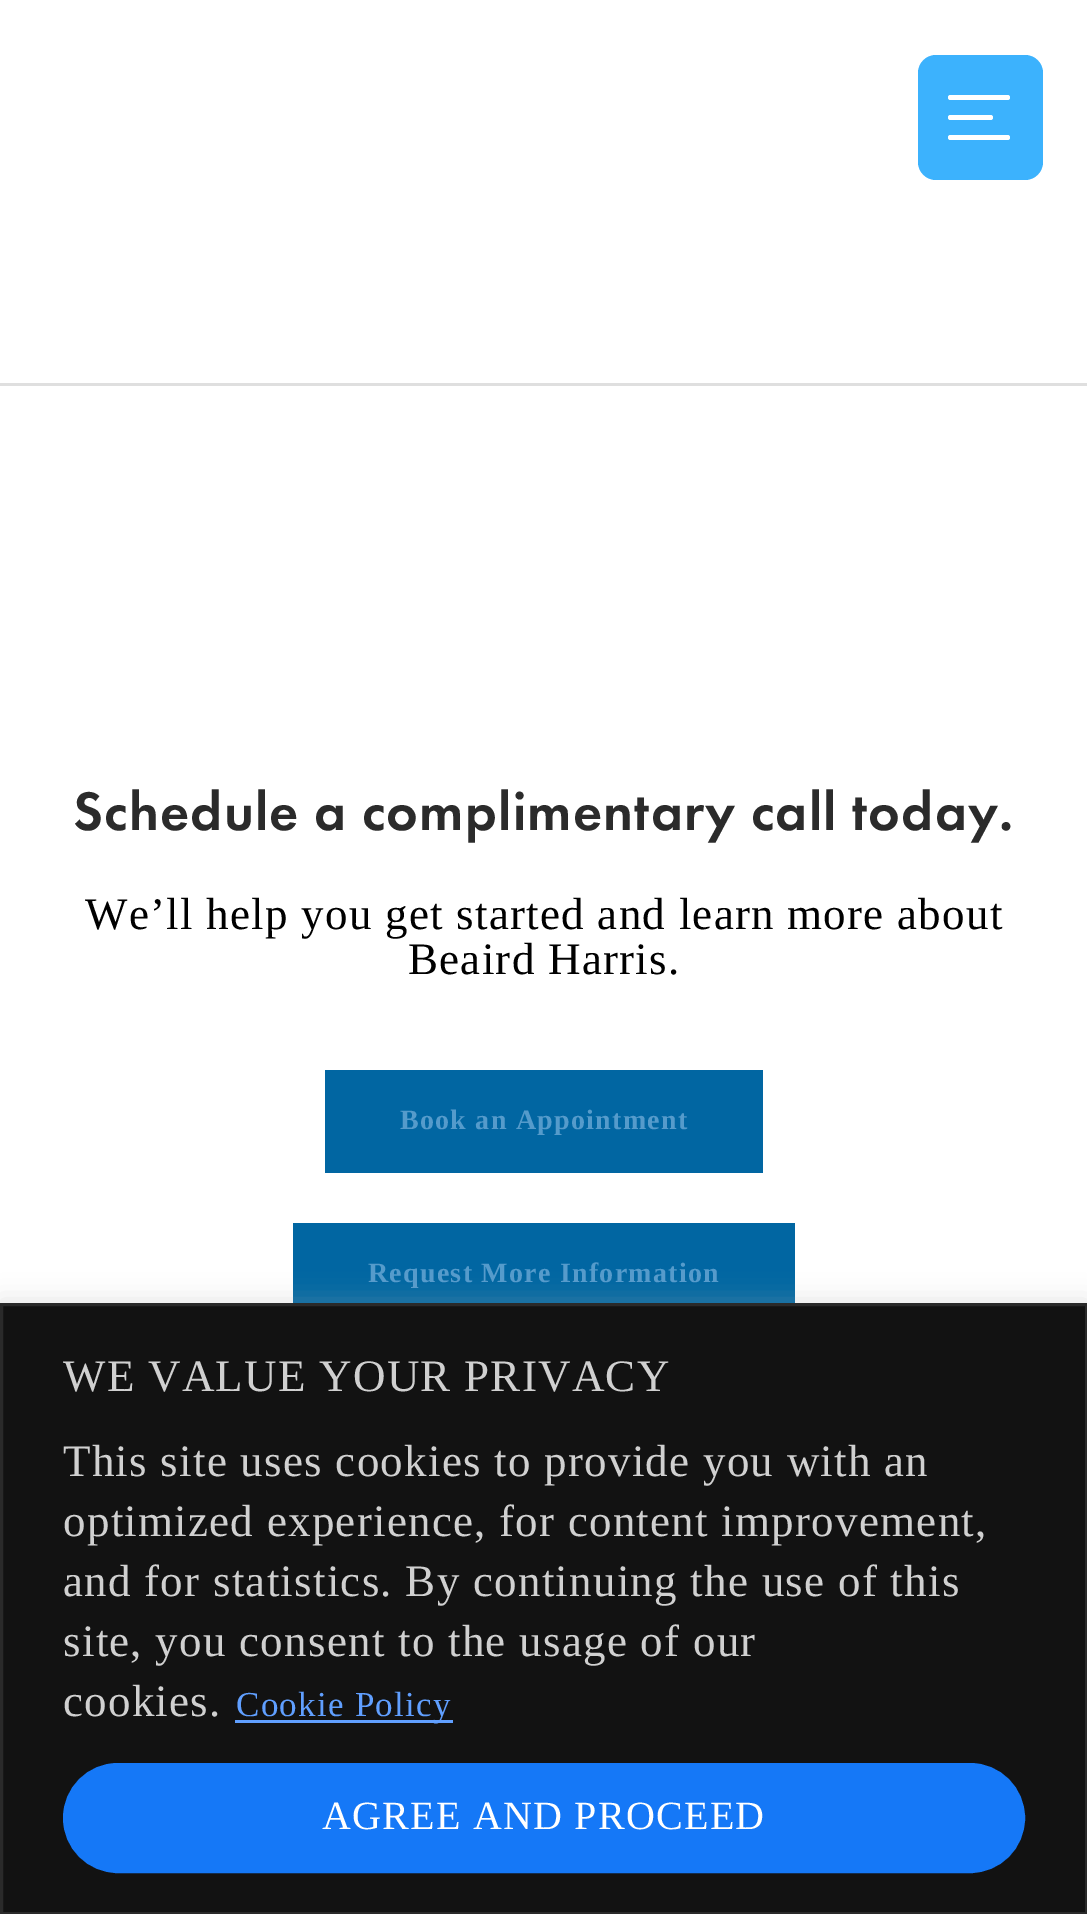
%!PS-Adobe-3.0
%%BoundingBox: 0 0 1087 1914
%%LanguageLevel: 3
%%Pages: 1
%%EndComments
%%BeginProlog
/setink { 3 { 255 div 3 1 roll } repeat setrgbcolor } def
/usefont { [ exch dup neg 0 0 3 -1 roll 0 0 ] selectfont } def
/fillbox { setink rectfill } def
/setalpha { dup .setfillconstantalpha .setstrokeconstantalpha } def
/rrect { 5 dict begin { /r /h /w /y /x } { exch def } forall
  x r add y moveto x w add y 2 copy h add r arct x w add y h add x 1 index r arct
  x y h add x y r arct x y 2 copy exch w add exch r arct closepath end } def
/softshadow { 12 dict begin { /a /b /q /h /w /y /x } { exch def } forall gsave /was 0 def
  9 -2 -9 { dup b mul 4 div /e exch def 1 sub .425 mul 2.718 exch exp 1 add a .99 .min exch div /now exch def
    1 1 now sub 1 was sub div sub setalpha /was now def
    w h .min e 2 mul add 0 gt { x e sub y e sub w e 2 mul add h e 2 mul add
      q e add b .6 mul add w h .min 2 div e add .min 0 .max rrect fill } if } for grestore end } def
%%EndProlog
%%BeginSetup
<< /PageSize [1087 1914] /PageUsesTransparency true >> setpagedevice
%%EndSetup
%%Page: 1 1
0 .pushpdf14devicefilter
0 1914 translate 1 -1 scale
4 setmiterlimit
0 0 1087 1914 255 255 255 fillbox
60 178 253 setink
918 55 125 125 18 rrect fill
255 255 255 setink
948 95 62 5 2.5 rrect fill
948 115 45 5 2.5 rrect fill
948 135 62 5 2.5 rrect fill
0 383 1087 3 223 223 223 fillbox
/FuturaPT-Medium 56 usefont
43 43 43 setink
73 830 moveto 1.25 0 (Schedule a complimentary call today.) ashow
/LiberationSerif-Regular 45 usefont
0 0 0 setink
85 929 moveto 1.25 0 (We’ll help you get started and learn more about) ashow
408 974 moveto 1.25 0 (Beaird Harris.) ashow
325 1070 438 103 1 102 162 fillbox
/LiberationSerif-Bold 28 usefont
85 155 203 setink
400 1129 moveto 1.25 0 (Book an Appointment) ashow
293 1223 502 80 1 102 162 fillbox
85 155 203 setink
368 1282 moveto 1.25 0 (Request More Information) ashow
172 171 171 setink
0 1300 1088 613 0 12.5 0.3 softshadow
18 18 18 setink
1.5 1304.5 moveto 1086.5 1304.5 lineto 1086.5 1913.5 lineto 1.5 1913.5 lineto closepath gsave fill grestore
42 42 42 setink
3 setlinewidth
stroke
/LiberationSerif-Regular 45 usefont
208 208 208 setink
63 1391 moveto 1.25 0 (WE VALUE YOUR PRIVACY) ashow
63 1476 moveto 1.25 0 (This site uses cookies to provide you with an) ashow
63 1536 moveto 1.25 0 (optimized experience, for content improvement,) ashow
63 1596 moveto 1.25 0 (and for statistics. By continuing the use of this) ashow
63 1656 moveto 1.25 0 (site, you consent to the usage of our) ashow
63 1716 moveto 1.25 0 (cookies.) ashow
235 1720 218 3 96 159 255 fillbox
/LiberationSerif-Regular 35 usefont
236 1716 moveto 1.25 0 (Cookie Policy) ashow
21 120 247 setink
65.5 1765.5 957 105 52.5 rrect gsave fill grestore
5 setlinewidth
stroke
/LiberationSerif-Regular 40 usefont
255 255 255 setink
322 1829 moveto 1.25 0 (AGREE AND PROCEED) ashow
.poppdf14devicefilter showpage
%%EOF
